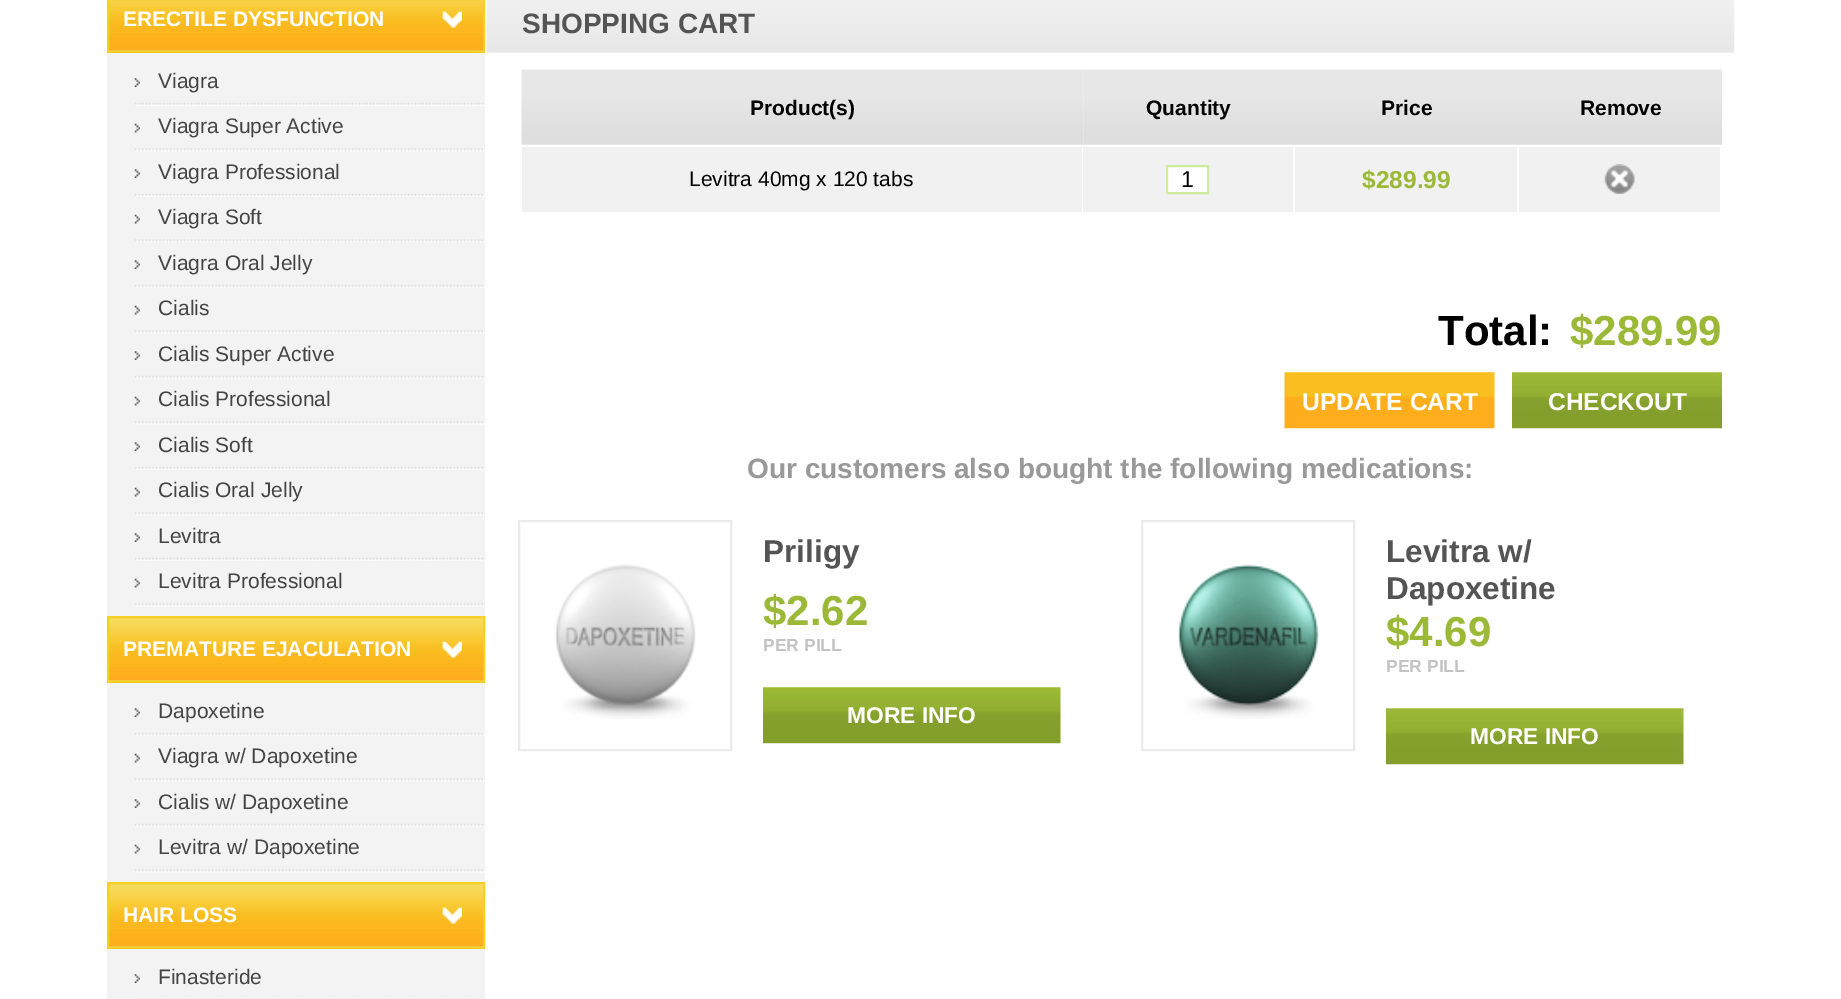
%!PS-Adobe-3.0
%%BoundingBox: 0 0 1841 999
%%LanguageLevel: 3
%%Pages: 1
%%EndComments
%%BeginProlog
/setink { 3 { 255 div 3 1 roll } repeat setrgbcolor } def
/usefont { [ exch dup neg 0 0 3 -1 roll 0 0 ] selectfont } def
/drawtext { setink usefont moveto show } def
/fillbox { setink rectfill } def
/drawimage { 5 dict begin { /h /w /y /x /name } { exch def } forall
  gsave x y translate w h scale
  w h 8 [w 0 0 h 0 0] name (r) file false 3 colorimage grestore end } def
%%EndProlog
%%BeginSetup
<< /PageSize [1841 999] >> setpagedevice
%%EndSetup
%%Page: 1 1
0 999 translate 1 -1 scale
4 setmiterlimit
0 0 1841 999 255 255 255 fillbox
109 50 374 1 250 207 65 fillbox
(assets/img1.rgb) 106 0 377 51 drawimage
245 207 34 setink
2 setlinewidth
108 -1 376 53 rectstroke
(ERECTILE DYSFUNCTION) 123 26 /LiberationSans-Bold 21 255 255 255 drawtext
(assets/img2.rgb) 442 11 20 17 drawimage
107 53 378 563 243 243 243 fillbox
(assets/img3.rgb) 135 102 350 4 drawimage
(assets/img4.rgb) 134 78 6 9 drawimage
(Viagra) 158 88 /LiberationSans-Regular 21 68 68 68 drawtext
(assets/img5.rgb) 135 148 350 4 drawimage
(assets/img6.rgb) 134 123 6 10 drawimage
(Viagra Super Active) 158 133 /LiberationSans-Regular 21 68 68 68 drawtext
(assets/img7.rgb) 135 193 350 4 drawimage
(assets/img4.rgb) 134 169 6 9 drawimage
(Viagra Professional) 158 179 /LiberationSans-Regular 21 68 68 68 drawtext
(assets/img5.rgb) 135 239 350 4 drawimage
(assets/img6.rgb) 134 214 6 10 drawimage
(Viagra Soft) 158 224 /LiberationSans-Regular 21 68 68 68 drawtext
(assets/img3.rgb) 135 284 350 4 drawimage
(assets/img4.rgb) 134 260 6 9 drawimage
(Viagra Oral Jelly) 158 270 /LiberationSans-Regular 21 68 68 68 drawtext
(assets/img5.rgb) 135 330 350 4 drawimage
(assets/img6.rgb) 134 305 6 10 drawimage
(Cialis) 158 315 /LiberationSans-Regular 21 68 68 68 drawtext
(assets/img3.rgb) 135 375 350 4 drawimage
(assets/img4.rgb) 134 351 6 9 drawimage
(Cialis Super Active) 158 361 /LiberationSans-Regular 21 68 68 68 drawtext
(assets/img5.rgb) 135 421 350 4 drawimage
(assets/img6.rgb) 134 396 6 10 drawimage
(Cialis Professional) 158 406 /LiberationSans-Regular 21 68 68 68 drawtext
(assets/img3.rgb) 135 466 350 4 drawimage
(assets/img4.rgb) 134 442 6 9 drawimage
(Cialis Soft) 158 452 /LiberationSans-Regular 21 68 68 68 drawtext
(assets/img5.rgb) 135 512 350 4 drawimage
(assets/img6.rgb) 134 487 6 10 drawimage
(Cialis Oral Jelly) 158 497 /LiberationSans-Regular 21 68 68 68 drawtext
(assets/img8.rgb) 135 557 350 4 drawimage
(assets/img4.rgb) 134 533 6 9 drawimage
(Levitra) 158 543 /LiberationSans-Regular 21 68 68 68 drawtext
(assets/img5.rgb) 135 603 350 4 drawimage
(assets/img6.rgb) 134 578 6 10 drawimage
(Levitra Professional) 158 588 /LiberationSans-Regular 21 68 68 68 drawtext
109 680 374 1 250 207 65 fillbox
(assets/img9.rgb) 106 617 377 64 drawimage
245 207 34 setink
108 617 376 65 rectstroke
(PREMATURE EJACULATION) 123 656 /LiberationSans-Bold 21 255 255 255 drawtext
(assets/img10.rgb) 442 641 20 17 drawimage
107 683 378 199 243 243 243 fillbox
(assets/img7.rgb) 135 732 350 4 drawimage
(assets/img4.rgb) 134 708 6 9 drawimage
(Dapoxetine) 158 718 /LiberationSans-Regular 21 68 68 68 drawtext
(assets/img5.rgb) 135 778 350 4 drawimage
(assets/img6.rgb) 134 753 6 10 drawimage
(Viagra w/ Dapoxetine) 158 763 /LiberationSans-Regular 21 68 68 68 drawtext
(assets/img3.rgb) 135 823 350 4 drawimage
(assets/img4.rgb) 134 799 6 9 drawimage
(Cialis w/ Dapoxetine) 158 809 /LiberationSans-Regular 21 68 68 68 drawtext
(assets/img5.rgb) 135 869 350 4 drawimage
(assets/img6.rgb) 134 844 6 10 drawimage
(Levitra w/ Dapoxetine) 158 854 /LiberationSans-Regular 21 68 68 68 drawtext
109 946 374 1 250 207 65 fillbox
(assets/img9.rgb) 106 883 377 64 drawimage
245 207 34 setink
108 883 376 65 rectstroke
(HAIR LOSS) 123 922 /LiberationSans-Bold 21 255 255 255 drawtext
(assets/img10.rgb) 442 907 20 17 drawimage
107 949 378 50 243 243 243 fillbox
(assets/img11.rgb) 135 998 344 1 drawimage
(assets/img4.rgb) 134 974 6 9 drawimage
(Finasteride) 158 984 /LiberationSans-Regular 21 68 68 68 drawtext
487 52 1247 1 238 238 238 fillbox
(assets/img12.rgb) 486 0 1249 52 drawimage
(SHOPPING CART) 522 33 /LiberationSans-Bold 28 84 84 84 drawtext
(assets/img13.rgb) 521 69 563 76 drawimage
(Product\(s\)) 750 115 /LiberationSans-Bold 21 0 0 0 drawtext
(assets/img14.rgb) 1083 69 212 76 drawimage
(Quantity) 1146 115 /LiberationSans-Bold 21 0 0 0 drawtext
(assets/img15.rgb) 1295 69 224 76 drawimage
(Price) 1381 115 /LiberationSans-Bold 21 0 0 0 drawtext
(assets/img16.rgb) 1519 69 203 76 drawimage
(Remove) 1580 115 /LiberationSans-Bold 21 0 0 0 drawtext
522 147 560 65 241 241 241 fillbox
(Levitra 40mg x 120 tabs) 689 186 /LiberationSans-Regular 21 0 0 0 drawtext
1083 147 210 65 241 241 241 fillbox
255 255 255 setink
1167 166 moveto 1208 166 lineto 1208 193 lineto 1167 193 lineto closepath gsave fill grestore
206 237 156 setink
stroke
(1) 1181 187 /LiberationSans-Regular 23 0 0 0 drawtext
1295 147 222 65 241 241 241 fillbox
($289.99) 1362 188 /LiberationSans-Bold 24.5 155 185 55 drawtext
1519 147 201 65 241 241 241 fillbox
(assets/img17.rgb) 1604 164 31 30 drawimage
(Total:) 1438 345 /LiberationSans-Bold 42 0 0 0 drawtext
($289.99) 1570 345 /LiberationSans-Bold 42 155 185 55 drawtext
(assets/img18.rgb) 1284 372 211 57 drawimage
(UPDATE CART) 1302 410 /LiberationSans-Bold 24.5 255 255 255 drawtext
(assets/img19.rgb) 1512 372 210 57 drawimage
(CHECKOUT) 1548 410 /LiberationSans-Bold 24.5 255 255 255 drawtext
(Our customers also bought the following medications:) 747 478 /LiberationSans-Bold 28 153 153 153 drawtext
235 235 235 setink
519 521 212 229 rectstroke
(assets/img20.rgb) 554 564 142 155 drawimage
(Priligy) 763 562 /LiberationSans-Bold 31.5 84 84 84 drawtext
($2.62) 763 625 /LiberationSans-Bold 42 155 185 55 drawtext
(PER PILL) 763 651 /LiberationSans-Bold 17.5 195 195 195 drawtext
(assets/img21.rgb) 763 687 298 57 drawimage
(MORE INFO) 847 723 /LiberationSans-Bold 22.75 255 255 255 drawtext
235 235 235 setink
1142 521 212 229 rectstroke
(assets/img22.rgb) 1178 564 141 155 drawimage
(Levitra w/) 1386 562 /LiberationSans-Bold 31.5 84 84 84 drawtext
(Dapoxetine) 1386 599 /LiberationSans-Bold 31.5 84 84 84 drawtext
($4.69) 1386 646 /LiberationSans-Bold 42 155 185 55 drawtext
(PER PILL) 1386 672 /LiberationSans-Bold 17.5 195 195 195 drawtext
(assets/img21.rgb) 1386 708 298 57 drawimage
(MORE INFO) 1470 744 /LiberationSans-Bold 22.75 255 255 255 drawtext
showpage
%%EOF
